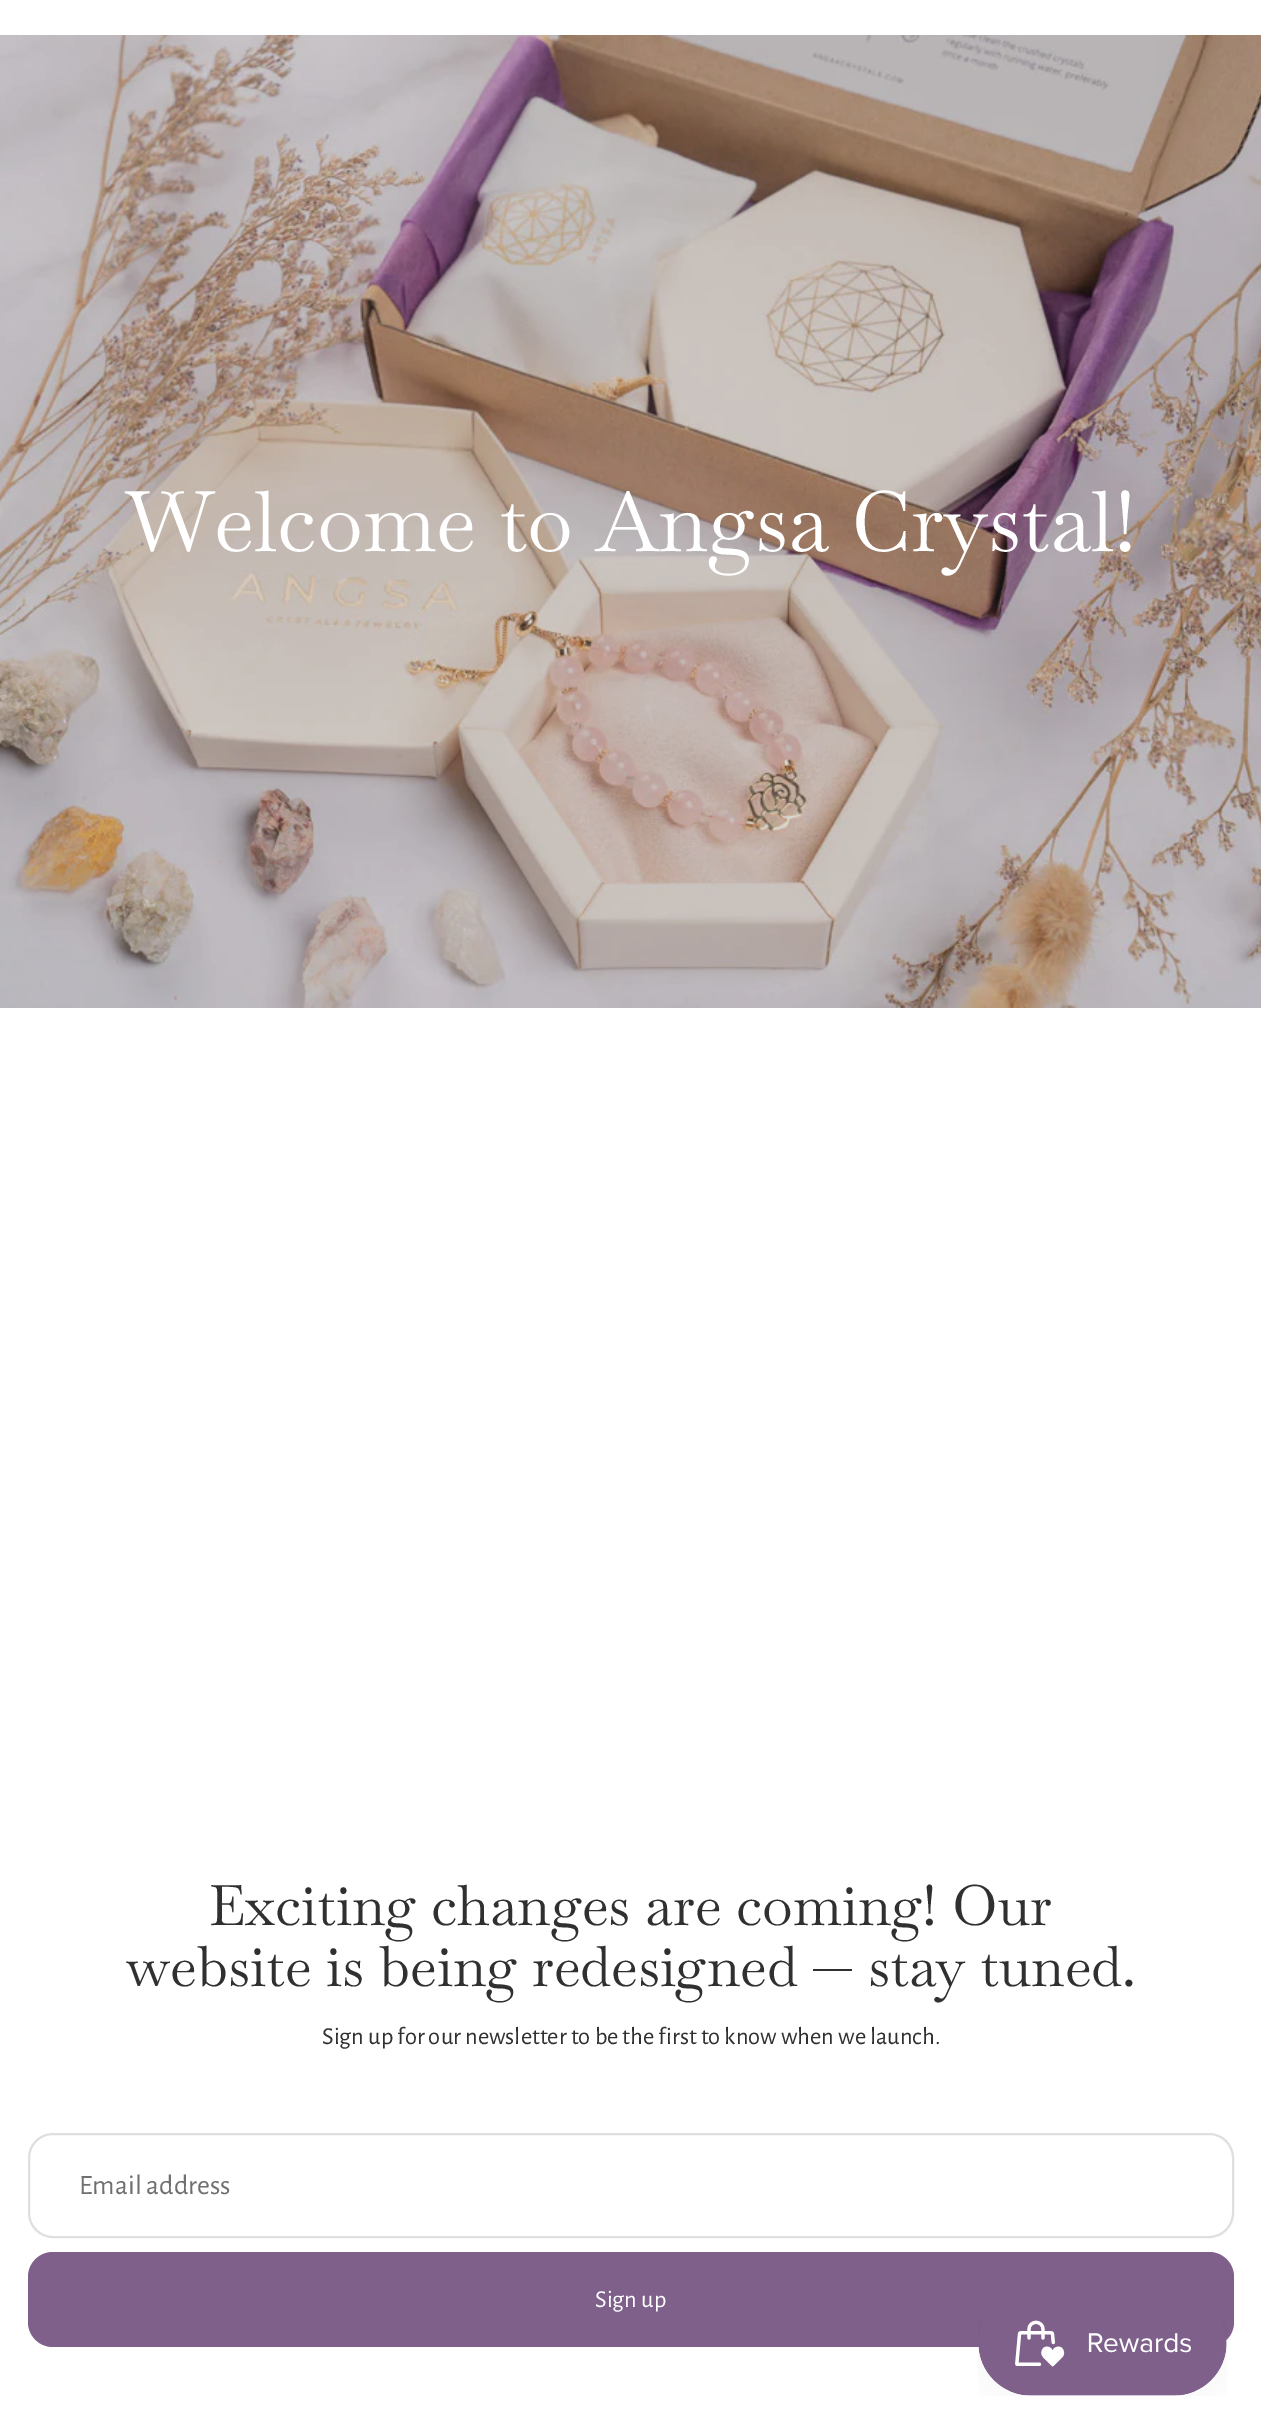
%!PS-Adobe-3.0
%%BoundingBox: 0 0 1261 2430
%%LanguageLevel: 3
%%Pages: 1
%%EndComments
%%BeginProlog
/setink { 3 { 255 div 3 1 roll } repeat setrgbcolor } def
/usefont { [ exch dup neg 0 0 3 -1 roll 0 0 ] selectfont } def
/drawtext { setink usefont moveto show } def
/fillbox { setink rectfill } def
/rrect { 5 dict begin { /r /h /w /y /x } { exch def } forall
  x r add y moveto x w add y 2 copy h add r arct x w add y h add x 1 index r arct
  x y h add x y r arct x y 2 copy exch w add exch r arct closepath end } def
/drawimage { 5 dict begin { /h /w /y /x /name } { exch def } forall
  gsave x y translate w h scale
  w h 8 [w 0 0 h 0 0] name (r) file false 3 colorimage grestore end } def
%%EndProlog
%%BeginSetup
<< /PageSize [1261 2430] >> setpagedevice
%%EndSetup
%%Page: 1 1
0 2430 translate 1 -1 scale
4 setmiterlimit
0 0 1261 2430 255 255 255 fillbox
(assets/img1.rgb) 0 35 1261 973 drawimage
(Welcome to Angsa Crystal!) 126 551 /Baskervville-Regular 84 255 255 255 drawtext
(Exciting changes are coming! Our) 209 1925 /Baskervville-Regular 56 48 48 48 drawtext
(website is being redesigned — stay tuned.) 127 1986 /Baskervville-Regular 56 48 48 48 drawtext
(Sign up for our newsletter to be the first to know when we launch.) 322 2044 /AlegreyaSans-Regular 24.5 48 48 48 drawtext
223 223 223 setink
2 setlinewidth
29 2134 1204 103 24 rrect stroke
(Email address) 79 2194 /AlegreyaSans-Regular 28 112 112 112 drawtext
126 96 139 setink
28 2252 1206 95 25 rrect fill
(Sign up) 595 2307 /AlegreyaSans-Regular 24.5 255 255 255 drawtext
(assets/img2.rgb) 978 2320 249 76 drawimage
showpage
%%EOF
